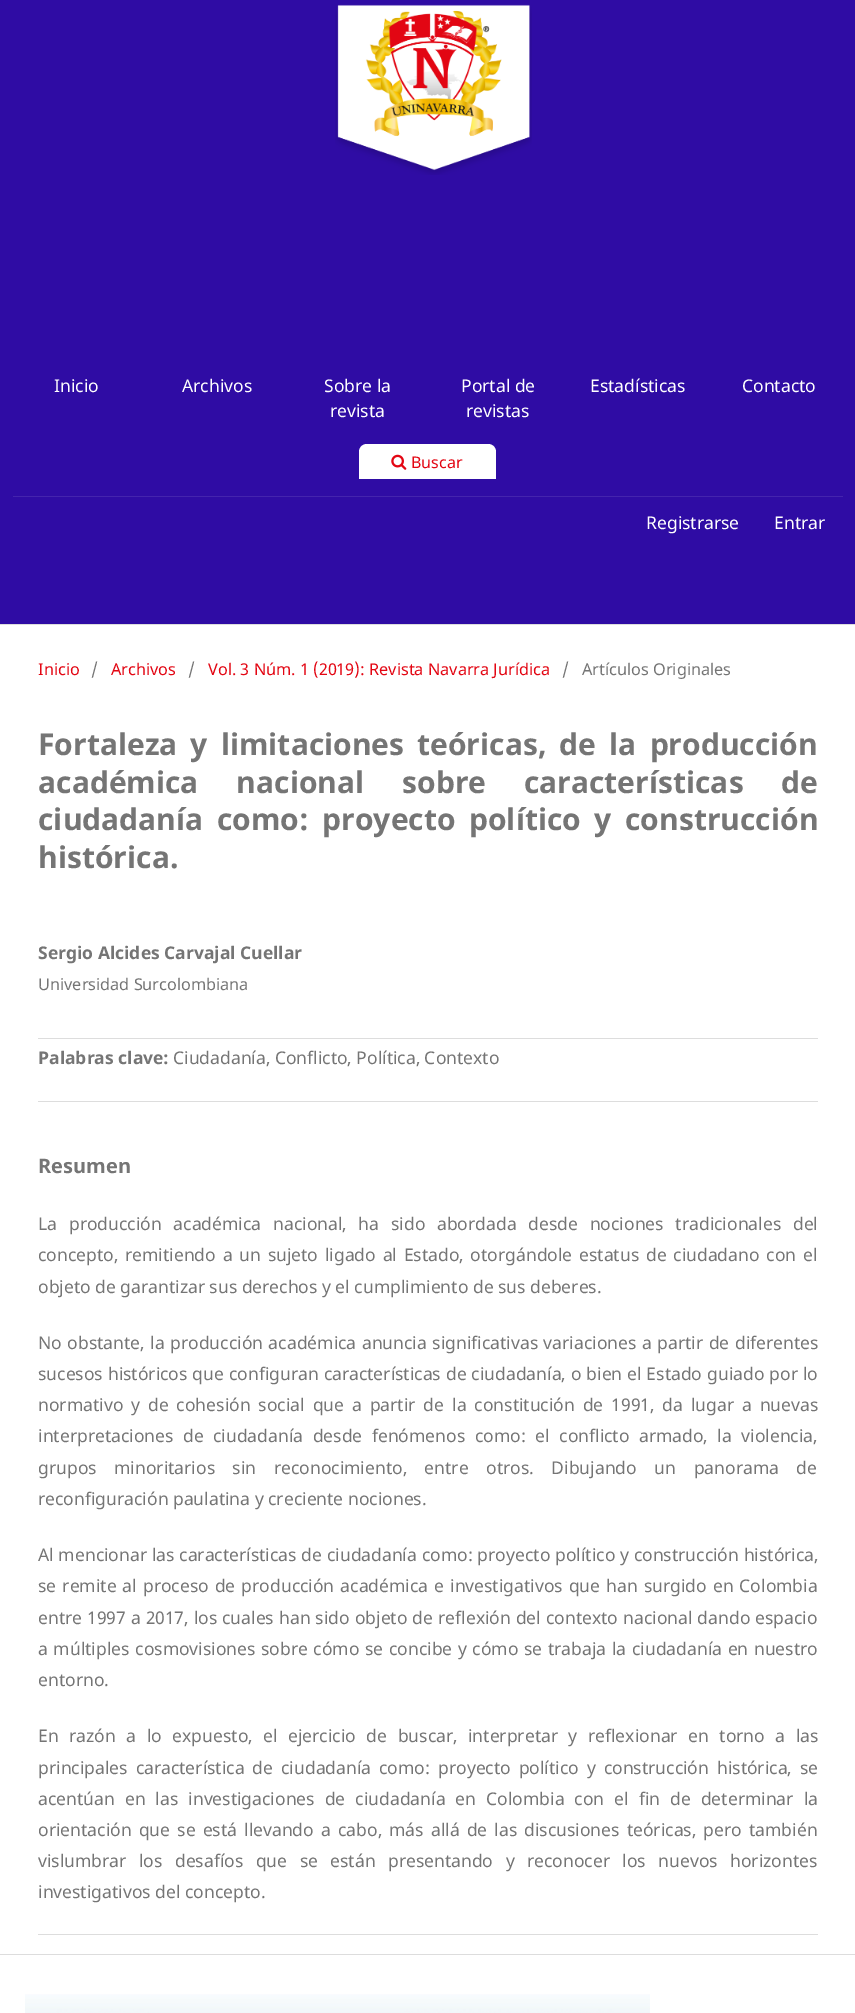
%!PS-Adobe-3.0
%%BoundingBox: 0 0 855 2013
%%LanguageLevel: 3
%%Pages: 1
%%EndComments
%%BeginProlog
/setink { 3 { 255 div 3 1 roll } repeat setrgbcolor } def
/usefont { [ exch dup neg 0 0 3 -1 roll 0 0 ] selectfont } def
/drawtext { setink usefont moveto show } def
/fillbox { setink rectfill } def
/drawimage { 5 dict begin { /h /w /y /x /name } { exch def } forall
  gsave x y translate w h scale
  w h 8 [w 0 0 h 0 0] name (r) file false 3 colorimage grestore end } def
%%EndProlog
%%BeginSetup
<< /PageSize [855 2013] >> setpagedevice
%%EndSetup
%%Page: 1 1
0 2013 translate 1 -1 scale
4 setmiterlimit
0 0 855 2013 255 255 255 fillbox
0 0 855 624 47 12 164 fillbox
0 624 855 1 221 221 221 fillbox
(assets/img1.rgb) 335 4 197 171 drawimage
(Inicio) 54 392 /NotoSans-Regular 17.5 255 255 255 drawtext
(Archivos) 182 392 /NotoSans-Regular 17.5 255 255 255 drawtext
(Sobre la) 324 392 /NotoSans-Regular 17.5 255 255 255 drawtext
(revista) 330 417 /NotoSans-Regular 17.5 255 255 255 drawtext
(Portal de) 461 392 /NotoSans-Regular 17.5 255 255 255 drawtext
(revistas) 466 417 /NotoSans-Regular 17.5 255 255 255 drawtext
(Estadísticas) 590 392 /NotoSans-Regular 17.5 255 255 255 drawtext
(Contacto) 742 392 /NotoSans-Regular 17.5 255 255 255 drawtext
367 444 moveto 488 444 lineto 492.5 444 496 447.5 496 452 curveto 496 479 lineto 359 479 lineto 359 452 lineto 359 447.5 362.5 444 367 444 curveto closepath fill
(assets/img2.rgb) 391 454 16 16 drawimage
(Buscar) 411 468 /NotoSans-Regular 16 227 6 19 drawtext
13 496 830 1 68 36 173 fillbox
(Registrarse) 646 529 /NotoSans-Regular 17.5 255 255 255 drawtext
(Entrar) 774 529 /NotoSans-Regular 17.5 255 255 255 drawtext
(Inicio) 38 675 /NotoSans-Regular 16.25 227 6 19 drawtext
(/) 91 675 /NotoSans-Regular 16.25 117 117 117 drawtext
(Archivos) 111 675 /NotoSans-Regular 16.25 227 6 19 drawtext
(/) 188 675 /NotoSans-Regular 16.25 117 117 117 drawtext
(Vol. 3 Núm. 1 \(2019\): Revista Navarra Jurídica) 208 675 /NotoSans-Regular 16.25 227 6 19 drawtext
(/) 562 675 /NotoSans-Regular 16.25 117 117 117 drawtext
(Artículos Originales) 582 675 /NotoSans-Regular 16.25 117 117 117 drawtext
/NotoSans-Bold 30 usefont
38 755 moveto 5.25 0 32 (Fortaleza y limitaciones teóricas, de la producción) widthshow
38 793 moveto 30 0 32 (académica nacional sobre características de) widthshow
38 830 moveto 5.75 0 32 (ciudadanía como: proyecto político y construcción) widthshow
(histórica.) 38 868 /NotoSans-Bold 30 117 117 117 drawtext
38 1038 780 1 221 221 221 fillbox
(Sergio Alcides Carvajal Cuellar) 38 959 /NotoSans-Bold 17.5 117 117 117 drawtext
(Universidad Surcolombiana) 38 990 /NotoSans-Regular 16.25 117 117 117 drawtext
38 1101 780 1 221 221 221 fillbox
(Palabras clave:) 38 1064 /NotoSans-Bold 17.5 117 117 117 drawtext
(Ciudadanía, Conflicto, Política, Contexto) 173 1064 /NotoSans-Regular 17.5 117 117 117 drawtext
38 1934 780 1 221 221 221 fillbox
(Resumen) 38 1173 /NotoSans-Bold 20 117 117 117 drawtext
/NotoSans-Regular 17.5 usefont
38 1230 moveto 7.25 0 32 (La producción académica nacional, ha sido abordada desde nociones tradicionales del) widthshow
38 1261 moveto 2.25 0 32 (concepto, remitiendo a un sujeto ligado al Estado, otorgándole estatus de ciudadano con el) widthshow
(objeto de garantizar sus derechos y el cumplimiento de sus deberes.) 38 1293 /NotoSans-Regular 17.5 117 117 117 drawtext
38 1349 moveto 1 0 32 (No obstante, la producción académica anuncia significativas variaciones a partir de diferentes) widthshow
38 1380 moveto 0.4 0 32 (sucesos históricos que configuran características de ciudadanía, o bien el Estado guiado por lo) widthshow
38 1411 moveto 3.4 0 32 (normativo y de cohesión social que a partir de la constitución de 1991, da lugar a nuevas) widthshow
38 1442 moveto 5 0 32 (interpretaciones de ciudadanía desde fenómenos como: el conflicto armado, la violencia,) widthshow
38 1474 moveto 13 0 32 (grupos minoritarios sin reconocimiento, entre otros. Dibujando un panorama de) widthshow
(reconfiguración paulatina y creciente nociones.) 38 1505 /NotoSans-Regular 17.5 117 117 117 drawtext
38 1561 moveto 0.25 0 32 (Al mencionar las características de ciudadanía como: proyecto político y construcción histórica,) widthshow
38 1592 moveto 1.5 0 32 (se remite al proceso de producción académica e investigativos que han surgido en Colombia) widthshow
38 1624 moveto 0.5 0 32 (entre 1997 a 2017, los cuales han sido objeto de reflexión del contexto nacional dando espacio) widthshow
38 1655 moveto 1.1 0 32 (a múltiples cosmovisiones sobre cómo se concibe y cómo se trabaja la ciudadanía en nuestro) widthshow
(entorno.) 38 1686 /NotoSans-Regular 17.5 117 117 117 drawtext
38 1742 moveto 6 0 32 (En razón a lo expuesto, el ejercicio de buscar, interpretar y reflexionar en torno a las) widthshow
38 1774 moveto 3.4 0 32 (principales característica de ciudadanía como: proyecto político y construcción histórica, se) widthshow
38 1805 moveto 5.5 0 32 (acentúan en las investigaciones de ciudadanía en Colombia con el fin de determinar la) widthshow
38 1836 moveto 2.6 0 32 (orientación que se está llevando a cabo, más allá de las discusiones teóricas, pero también) widthshow
38 1867 moveto 7.9 0 32 (vislumbrar los desafíos que se están presentando y reconocer los nuevos horizontes) widthshow
(investigativos del concepto.) 38 1898 /NotoSans-Regular 17.5 117 117 117 drawtext
0 1954 855 1 221 221 221 fillbox
(assets/img3.rgb) 25 1994 625 19 drawimage
showpage
%%EOF
